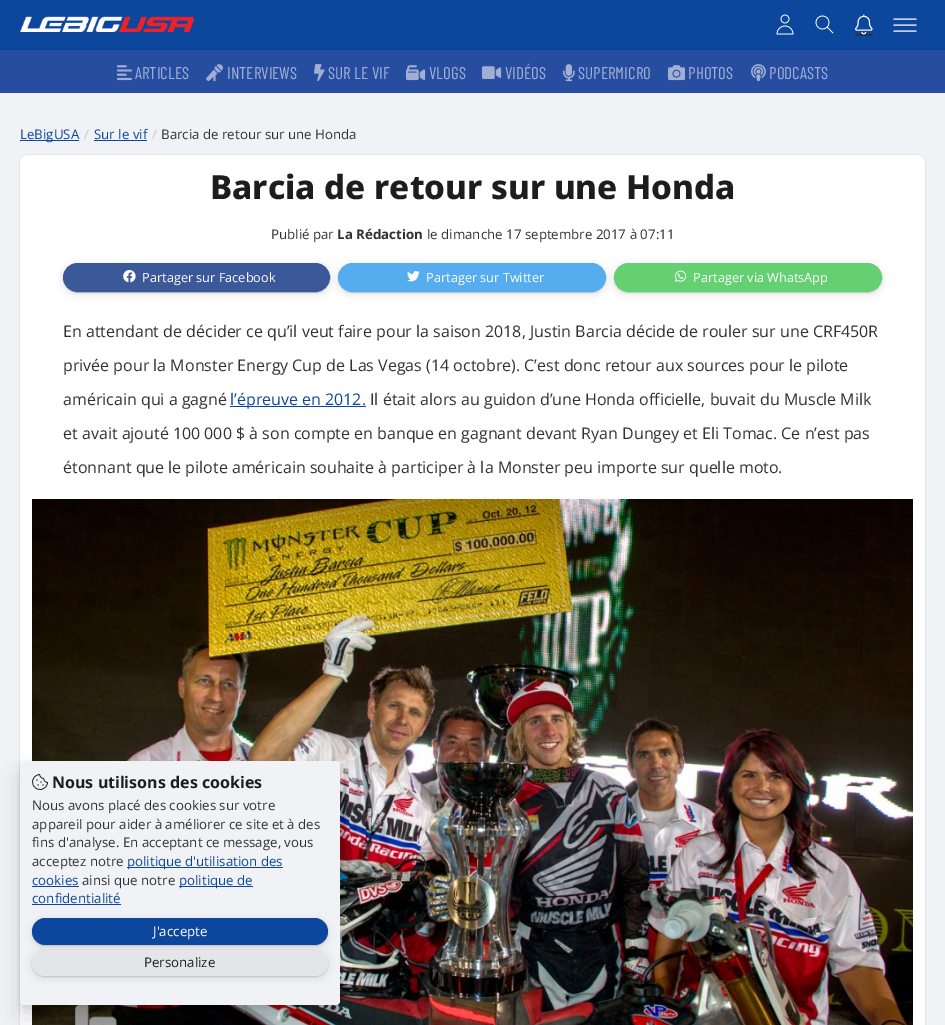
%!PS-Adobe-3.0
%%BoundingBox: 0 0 945 1025
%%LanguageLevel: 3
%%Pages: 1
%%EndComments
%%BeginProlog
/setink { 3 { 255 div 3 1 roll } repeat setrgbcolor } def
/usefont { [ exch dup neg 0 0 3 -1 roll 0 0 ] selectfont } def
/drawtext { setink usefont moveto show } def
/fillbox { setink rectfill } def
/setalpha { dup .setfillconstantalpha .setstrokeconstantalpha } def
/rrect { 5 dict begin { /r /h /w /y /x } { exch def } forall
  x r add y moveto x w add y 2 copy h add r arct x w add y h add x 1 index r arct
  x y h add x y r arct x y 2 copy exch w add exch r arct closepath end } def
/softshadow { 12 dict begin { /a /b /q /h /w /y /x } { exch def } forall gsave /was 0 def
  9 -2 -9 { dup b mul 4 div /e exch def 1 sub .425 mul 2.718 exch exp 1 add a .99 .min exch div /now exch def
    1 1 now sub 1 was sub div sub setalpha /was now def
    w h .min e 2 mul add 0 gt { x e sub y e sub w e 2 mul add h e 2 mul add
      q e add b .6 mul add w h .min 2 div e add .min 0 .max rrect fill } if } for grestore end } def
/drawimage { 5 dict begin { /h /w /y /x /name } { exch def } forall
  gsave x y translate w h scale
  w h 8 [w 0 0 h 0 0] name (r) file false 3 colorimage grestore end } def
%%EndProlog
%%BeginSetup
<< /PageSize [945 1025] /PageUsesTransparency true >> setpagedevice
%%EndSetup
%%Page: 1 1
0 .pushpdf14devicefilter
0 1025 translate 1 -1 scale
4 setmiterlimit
0 0 945 1025 240 242 245 fillbox
0 0 945 49 12 70 157 fillbox
0 49 945 1 14 66 145 fillbox
(assets/img1.rgb) 20 16 175 16 drawimage
(assets/img2.rgb) 776 14 18 21 drawimage
(assets/img3.rgb) 815 15 19 19 drawimage
855 34 18 2 48 49 54 fillbox
(assets/img4.rgb) 855 14 18 21 drawimage
255 255 255 setink
2 setlinecap
894 19 moveto 916 19 lineto 894 25 moveto 916 25 lineto 894 31 moveto 916 31 lineto stroke
0 50 945 43 39 77 160 fillbox
(assets/img5.rgb) 117 65 15 16 drawimage
(ARTICLES) 135 79 /BarlowCondensed-Regular 17 161 175 211 drawtext
(assets/img6.rgb) 206 64 17 18 drawimage
(INTERVIEWS) 227 79 /BarlowCondensed-Regular 17 161 175 211 drawtext
(assets/img7.rgb) 314 64 11 18 drawimage
(SUR LE VIF) 328 79 /BarlowCondensed-Regular 17 161 175 211 drawtext
(assets/img8.rgb) 406 65 20 16 drawimage
(VLOGS) 429 79 /BarlowCondensed-Regular 17 161 175 211 drawtext
(assets/img9.rgb) 482 66 20 13 drawimage
(VIDÉOS) 505 79 /BarlowCondensed-Regular 17 161 175 211 drawtext
(assets/img10.rgb) 563 64 12 18 drawimage
(SUPERMICRO) 578 79 /BarlowCondensed-Regular 17 161 175 211 drawtext
(assets/img11.rgb) 668 65 17 16 drawimage
(PHOTOS) 688 79 /BarlowCondensed-Regular 17 161 175 211 drawtext
(assets/img12.rgb) 751 64 15 18 drawimage
(PODCASTS) 769 79 /BarlowCondensed-Regular 17 161 175 211 drawtext
20 140 59 1 12 70 157 fillbox
(LeBigUSA) 20 139 /OpenSans-Regular 13.3 12 70 157 drawtext
(/) 84 139 /OpenSans-Regular 13.3 199 200 204 drawtext
(Sur le vif) 94 139 /OpenSans-Regular 13.3 12 70 157 drawtext
94 140 53 1 12 70 157 fillbox
(/) 152 139 /OpenSans-Regular 13.3 199 200 204 drawtext
(Barcia de retour sur une Honda) 161 139 /OpenSans-Regular 13.3 48 49 54 drawtext
0 0 0 setink
20 155 905 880 8 0.5 0.2 softshadow
255 255 255 setink
20 155 905 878 8 rrect fill
(Barcia de retour sur une Honda) 210 199 /NotoSans-ExtraBold 33.2 28 28 33 drawtext
(Publié par) 271 239 /OpenSans-Regular 13.3 48 49 54 drawtext
(La Rédaction) 337 239 /OpenSans-Bold 13.3 48 49 54 drawtext
(le dimanche 17 septembre 2017 à 07:11) 427 239 /OpenSans-Regular 13.3 48 49 54 drawtext
28 28 33 setink
63 264 267 29 14.5 0.5 0.12 softshadow
63 265 267 29 14.5 4 0.12 softshadow
59 89 152 setink
64 264 265 27 13.5 rrect gsave fill grestore
2 setlinewidth
0 setlinecap
stroke
(assets/img13.rgb) 123 270 13 13 drawimage
(Partager sur Facebook) 142 282 /OpenSans-Regular 12.75 255 255 255 drawtext
28 28 33 setink
338 264 268 29 14.5 0.5 0.12 softshadow
338 265 268 29 14.5 4 0.12 softshadow
85 172 238 setink
339 264 266 27 13.5 rrect gsave fill grestore
stroke
(assets/img14.rgb) 407 271 13 11 drawimage
(Partager sur Twitter) 426 282 /OpenSans-Regular 12.75 255 255 255 drawtext
28 28 33 setink
614 264 268 29 14.5 0.5 0.12 softshadow
614 265 268 29 14.5 4 0.12 softshadow
100 208 114 setink
615 264 266 27 13.5 rrect gsave fill grestore
stroke
(assets/img15.rgb) 675 270 12 12 drawimage
(Partager via WhatsApp) 693 282 /OpenSans-Regular 12.75 255 255 255 drawtext
(En attendant de décider ce qu’il veut faire pour la saison 2018, Justin Barcia décide de rouler sur une CRF450R) 63 337 /OpenSans-Regular 16 48 49 54 drawtext
(privée pour la Monster Energy Cup de Las Vegas \(14 octobre\). C’est donc retour aux sources pour le pilote) 63 371 /OpenSans-Regular 16 48 49 54 drawtext
(américain qui a gagné) 63 405 /OpenSans-Regular 16 48 49 54 drawtext
230 406 136 1 12 70 157 fillbox
(l’épreuve en 2012.) 230 405 /OpenSans-Regular 16 12 70 157 drawtext
(Il était alors au guidon d’une Honda officielle, buvait du Muscle Milk) 370 405 /OpenSans-Regular 16 48 49 54 drawtext
(et avait ajouté 100 000 $ à son compte en banque en gagnant devant Ryan Dungey et Eli Tomac. Ce n’est pas) 63 439 /OpenSans-Regular 16 48 49 54 drawtext
(étonnant que le pilote américain souhaite à participer à la Monster peu importe sur quelle moto.) 63 473 /OpenSans-Regular 16 48 49 54 drawtext
(assets/img16.rgb) 32 499 881 526 drawimage
0 0 0 setink
20 775 320 244 4 12.5 0.12 softshadow
20 764 320 244 4 3 0.08 softshadow
240 242 245 setink
20 761 320 244 4 rrect fill
(assets/img17.rgb) 32 774 16 16 drawimage
(Nous utilisons des cookies) 52 788 /NotoSans-Bold 16 28 28 33 drawtext
(Nous avons placé des cookies sur votre) 32 810 /OpenSans-Regular 13.3 48 49 54 drawtext
(appareil pour aider à améliorer ce site et à des) 32 829 /OpenSans-Regular 13.3 48 49 54 drawtext
(fins d'analyse. En acceptant ce message, vous) 32 847 /OpenSans-Regular 13.3 48 49 54 drawtext
(acceptez notre) 32 866 /OpenSans-Regular 13.3 48 49 54 drawtext
127 867 156 1 12 70 157 fillbox
(politique d'utilisation des) 127 866 /OpenSans-Regular 13.3 12 70 157 drawtext
(cookies) 32 885 /OpenSans-Regular 13.3 12 70 157 drawtext
32 886 47 1 12 70 157 fillbox
(ainsi que notre) 82 885 /OpenSans-Regular 13.3 48 49 54 drawtext
179 886 74 1 12 70 157 fillbox
(politique de) 179 885 /OpenSans-Regular 13.3 12 70 157 drawtext
(confidentialité) 32 903 /OpenSans-Regular 13.3 12 70 157 drawtext
32 904 89 1 12 70 157 fillbox
28 28 33 setink
32 919 296 27 13.5 0.5 0.12 softshadow
32 920 296 27 13.5 4 0.12 softshadow
12 70 157 setink
32 918 296 27 13.5 rrect fill
(J'accepte) 153 936 /OpenSans-Regular 13.3 255 255 255 drawtext
28 28 33 setink
32 951 296 26 13 0.5 0.12 softshadow
32 952 296 26 13 4 0.12 softshadow
227 229 232 setink
32 950 296 26 13 rrect fill
(Personalize) 144 967 /OpenSans-Regular 13.3 28 28 33 drawtext
.poppdf14devicefilter showpage
%%EOF
